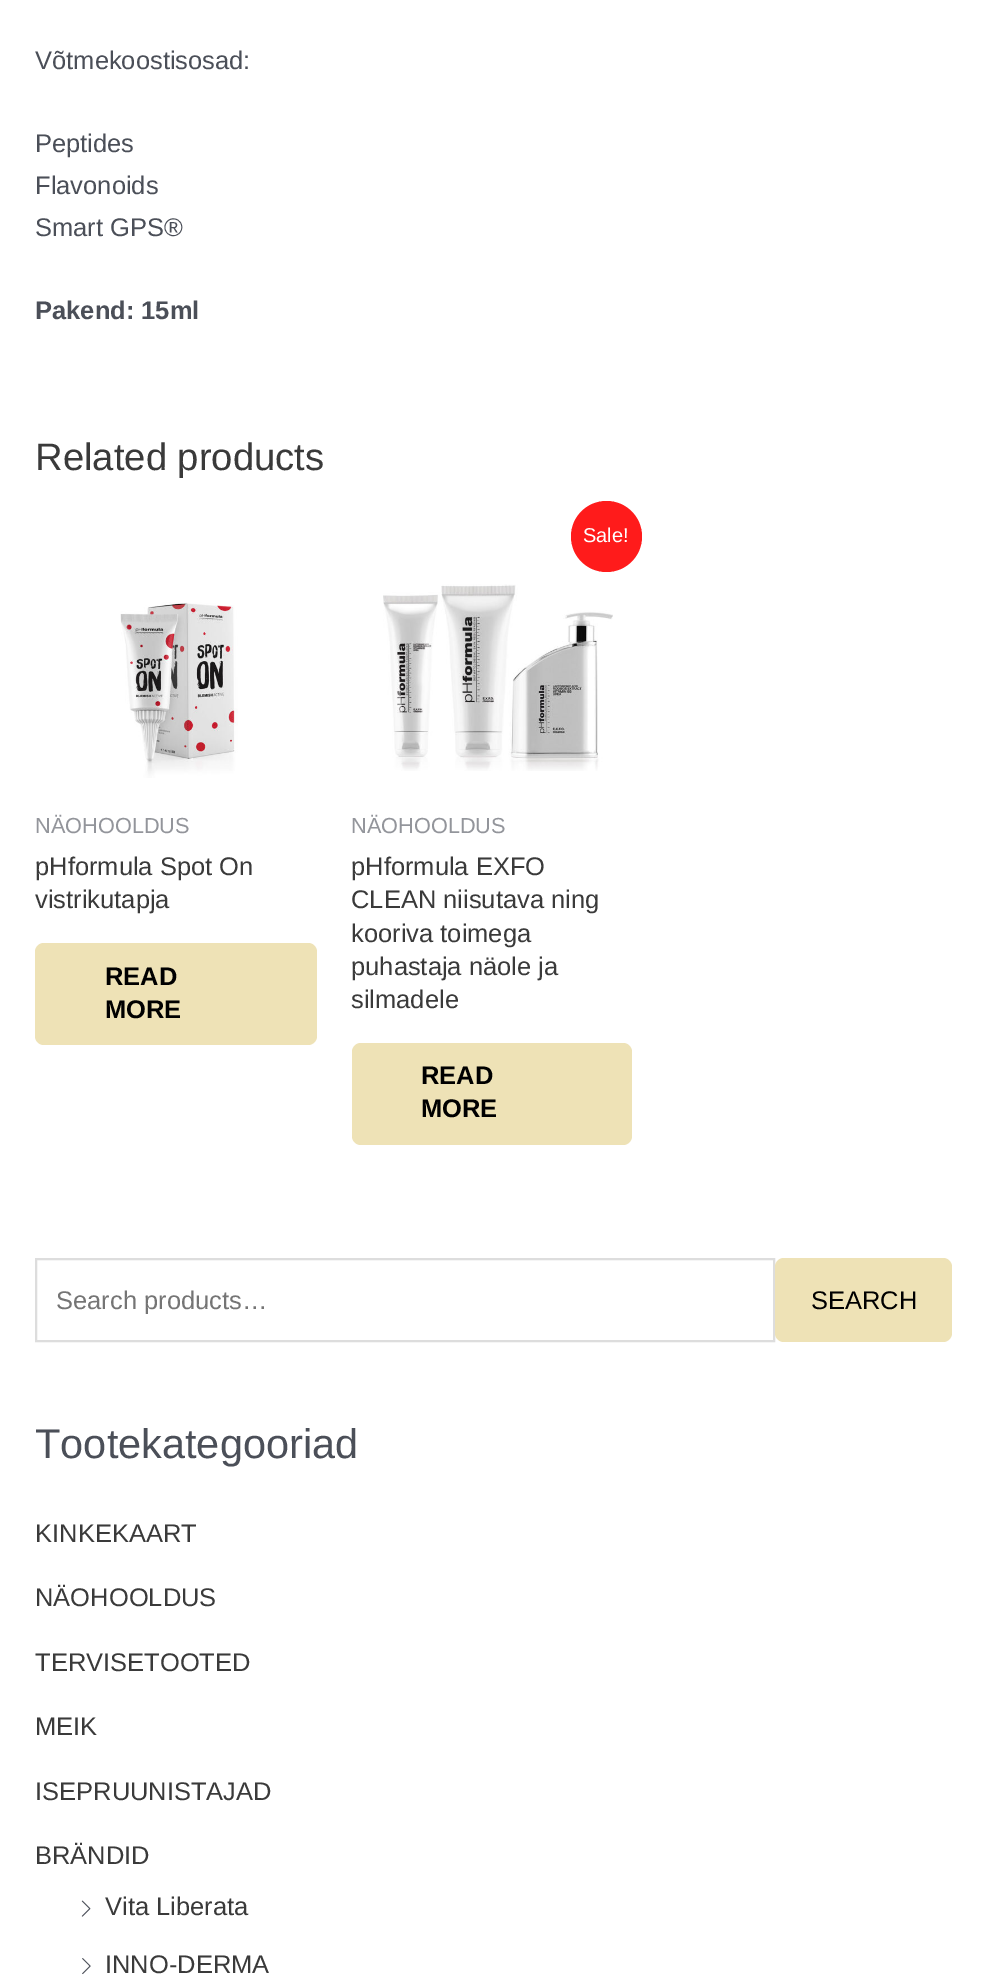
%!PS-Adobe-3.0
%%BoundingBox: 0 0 986 1980
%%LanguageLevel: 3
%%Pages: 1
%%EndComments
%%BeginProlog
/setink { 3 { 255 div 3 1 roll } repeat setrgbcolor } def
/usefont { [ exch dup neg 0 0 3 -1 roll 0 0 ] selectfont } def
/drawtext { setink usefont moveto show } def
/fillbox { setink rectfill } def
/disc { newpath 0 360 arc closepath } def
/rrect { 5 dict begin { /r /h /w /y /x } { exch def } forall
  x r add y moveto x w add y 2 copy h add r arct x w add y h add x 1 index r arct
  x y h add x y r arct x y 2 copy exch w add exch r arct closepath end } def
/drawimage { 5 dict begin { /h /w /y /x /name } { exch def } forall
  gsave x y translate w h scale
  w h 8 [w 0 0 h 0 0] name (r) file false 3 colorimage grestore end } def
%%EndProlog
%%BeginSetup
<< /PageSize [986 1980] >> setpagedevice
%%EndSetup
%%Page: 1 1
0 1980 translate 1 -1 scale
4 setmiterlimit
0 0 986 1980 255 255 255 fillbox
(Võtmekoostisosad:) 35 69 /LiberationSans-Regular 25.5 75 79 88 drawtext
(Peptides) 35 152 /LiberationSans-Regular 25.5 75 79 88 drawtext
(Flavonoids) 35 194 /LiberationSans-Regular 25.5 75 79 88 drawtext
(Smart GPS®) 35 236 /LiberationSans-Regular 25.5 75 79 88 drawtext
(Pakend: 15ml) 35 319 /LiberationSans-Bold 25.5 75 79 88 drawtext
(Related products) 35 470 /LiberationSans-Regular 38.25 58 58 58 drawtext
(assets/img1.rgb) 120 602 118 176 drawimage
(NÄOHOOLDUS) 35 833 /LiberationSans-Regular 21.75 147 149 155 drawtext
(pHformula Spot On) 35 875 /LiberationSans-Regular 25.5 58 58 58 drawtext
(vistrikutapja) 35 908 /LiberationSans-Regular 25.5 58 58 58 drawtext
238 226 182 setink
35 943 282 102 9 rrect fill
(READ) 105 985 /LiberationSans-Bold 25.5 0 0 0 drawtext
(MORE) 105 1018 /LiberationSans-Bold 25.5 0 0 0 drawtext
255 27 27 setink
606.5 536.5 35.5 disc fill
(Sale!) 583 542 /LiberationSans-Regular 20 255 255 255 drawtext
(assets/img2.rgb) 383 584 230 187 drawimage
(NÄOHOOLDUS) 351 833 /LiberationSans-Regular 21.75 147 149 155 drawtext
(pHformula EXFO) 351 875 /LiberationSans-Regular 25.5 58 58 58 drawtext
(CLEAN niisutava ning) 351 908 /LiberationSans-Regular 25.5 58 58 58 drawtext
(kooriva toimega) 351 942 /LiberationSans-Regular 25.5 58 58 58 drawtext
(puhastaja näole ja) 351 975 /LiberationSans-Regular 25.5 58 58 58 drawtext
(silmadele) 351 1008 /LiberationSans-Regular 25.5 58 58 58 drawtext
238 226 182 setink
352 1043 280 102 9 rrect fill
(READ) 421 1084 /LiberationSans-Bold 25.5 0 0 0 drawtext
(MORE) 421 1117 /LiberationSans-Bold 25.5 0 0 0 drawtext
221 221 221 setink
2 setlinewidth
36 1259 738 82 rectstroke
gsave
56 1286 691 28 rectclip
(Search products…) 56 1309 /LiberationSans-Regular 25.5 117 117 117 drawtext
grestore
238 226 182 setink
775 1258 177 84 9 rrect fill
(SEARCH) 811 1309 /LiberationSans-Regular 25.5 0 0 0 drawtext
(Tootekategooriad) 35 1458 /LiberationSans-Regular 41.5 75 79 88 drawtext
(KINKEKAART) 35 1542 /LiberationSans-Regular 25.5 58 58 58 drawtext
(NÄOHOOLDUS) 35 1606 /LiberationSans-Regular 25.5 58 58 58 drawtext
(TERVISETOOTED) 35 1671 /LiberationSans-Regular 25.5 58 58 58 drawtext
(MEIK) 35 1735 /LiberationSans-Regular 25.5 58 58 58 drawtext
(ISEPRUUNISTAJAD) 35 1800 /LiberationSans-Regular 25.5 58 58 58 drawtext
(BRÄNDID) 35 1864 /LiberationSans-Regular 25.5 58 58 58 drawtext
(assets/img3.rgb) 81 1900 10 17 drawimage
(Vita Liberata) 105 1915 /LiberationSans-Regular 25.5 58 58 58 drawtext
(assets/img4.rgb) 82 1958 9 17 drawimage
(INNO-DERMA) 105 1973 /LiberationSans-Regular 25.5 58 58 58 drawtext
showpage
%%EOF
